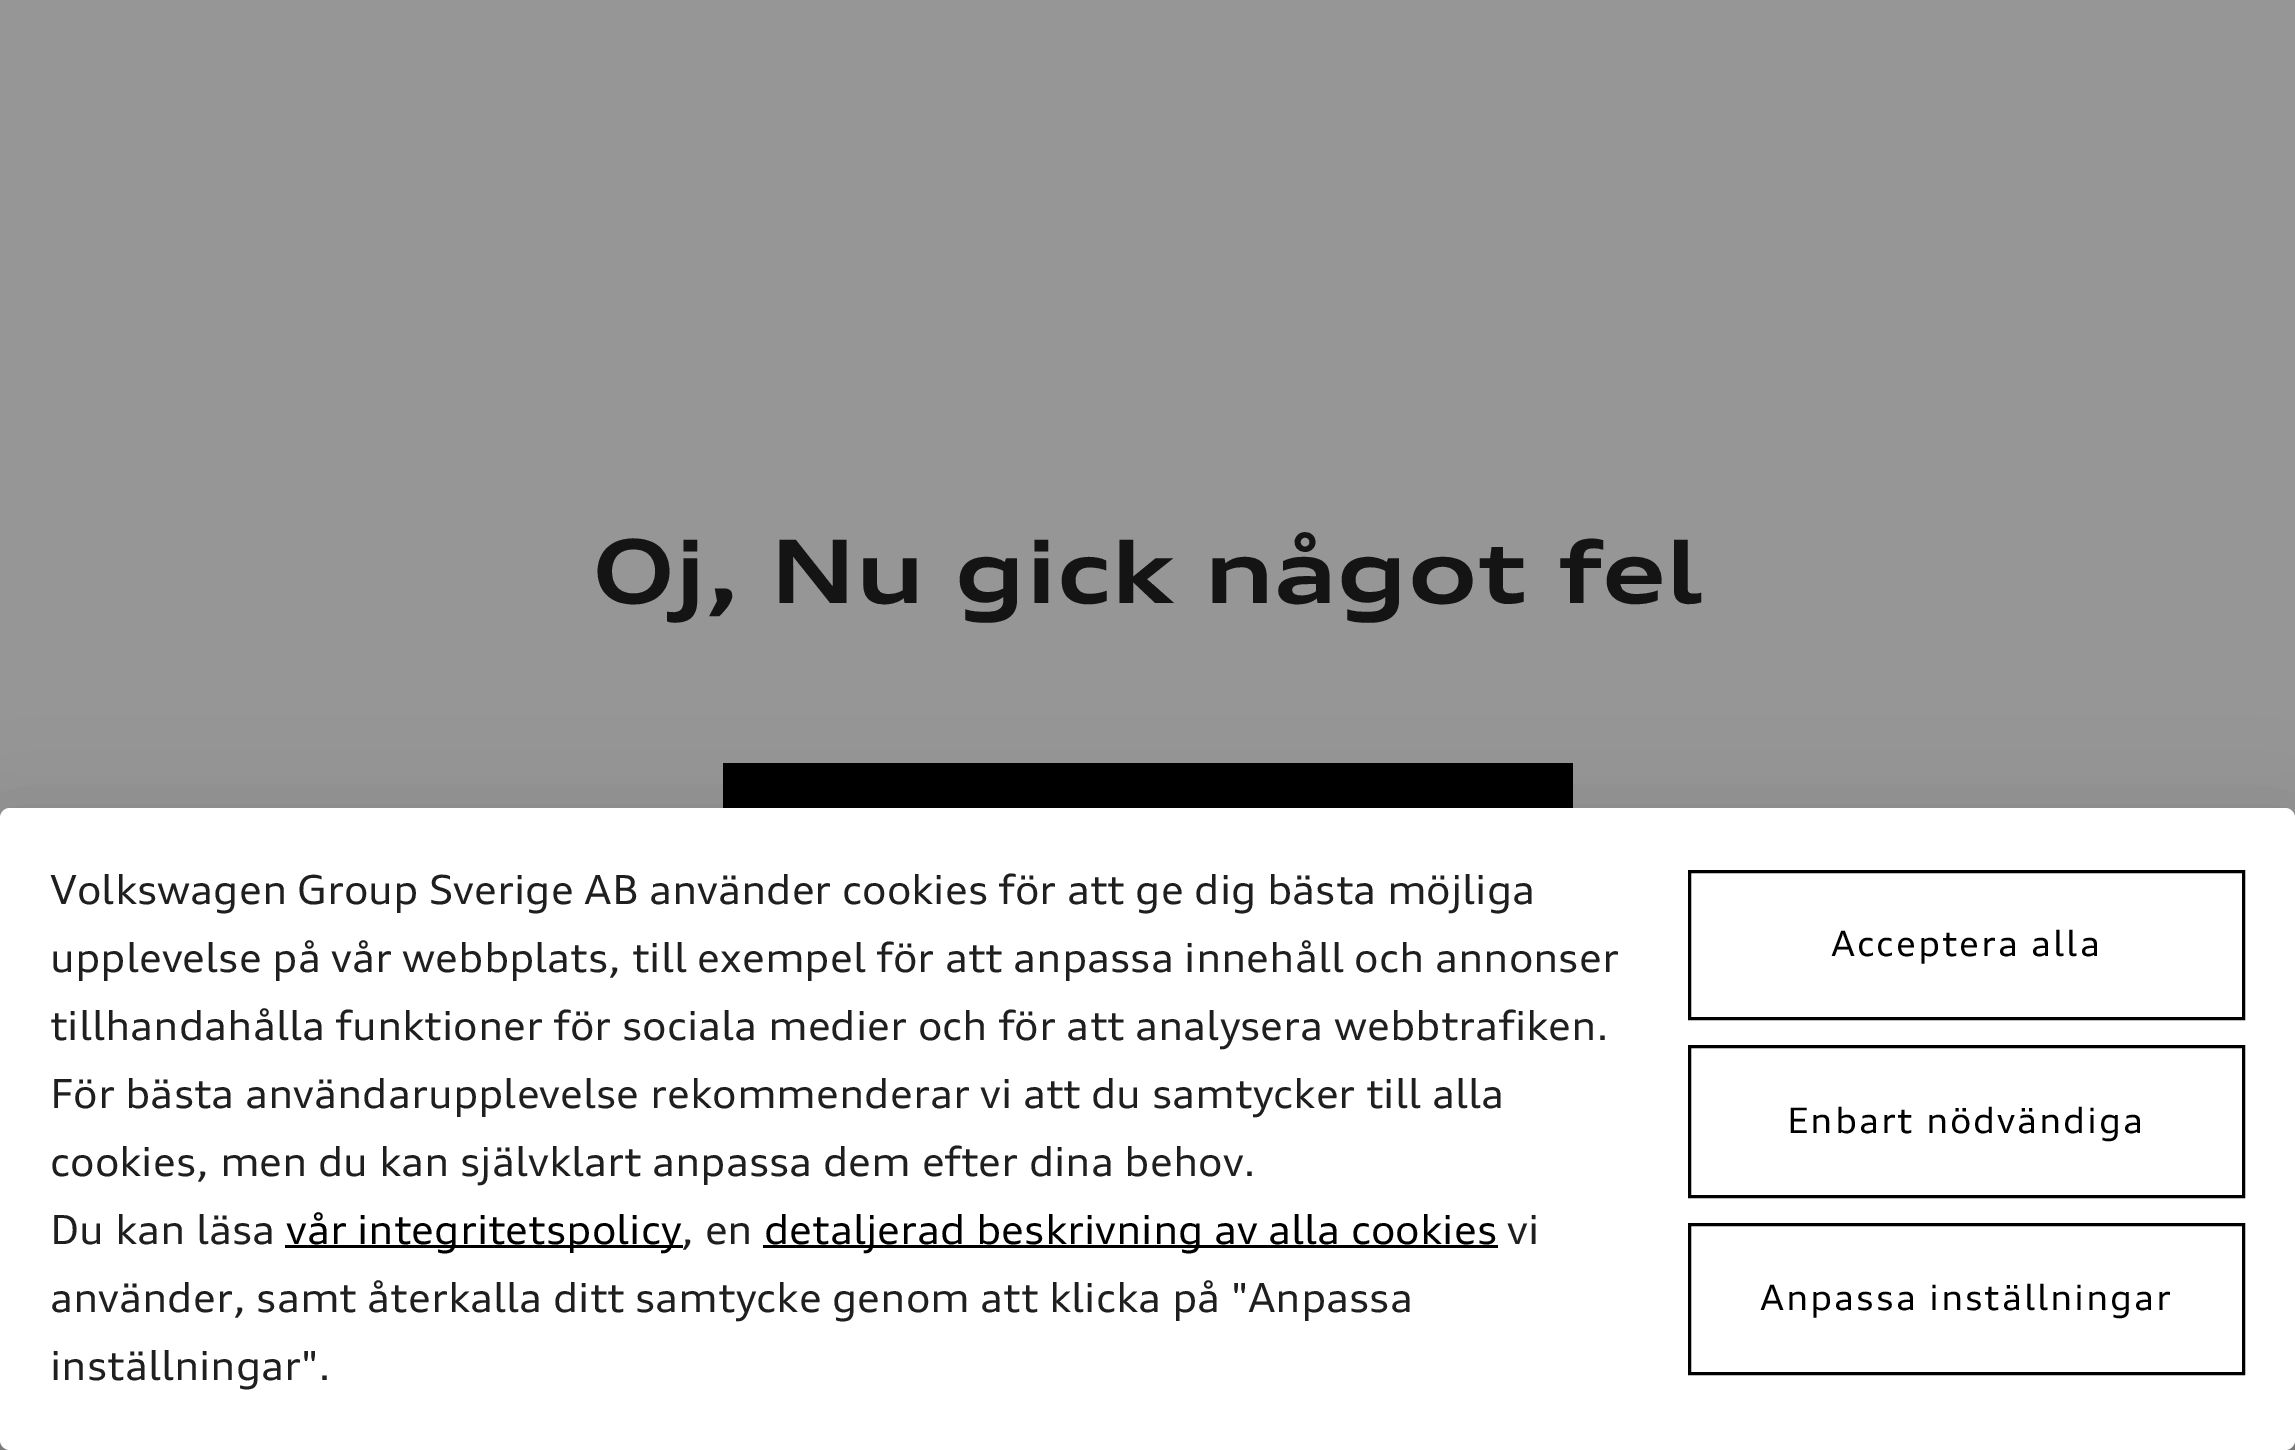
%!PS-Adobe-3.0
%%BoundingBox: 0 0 2295 1450
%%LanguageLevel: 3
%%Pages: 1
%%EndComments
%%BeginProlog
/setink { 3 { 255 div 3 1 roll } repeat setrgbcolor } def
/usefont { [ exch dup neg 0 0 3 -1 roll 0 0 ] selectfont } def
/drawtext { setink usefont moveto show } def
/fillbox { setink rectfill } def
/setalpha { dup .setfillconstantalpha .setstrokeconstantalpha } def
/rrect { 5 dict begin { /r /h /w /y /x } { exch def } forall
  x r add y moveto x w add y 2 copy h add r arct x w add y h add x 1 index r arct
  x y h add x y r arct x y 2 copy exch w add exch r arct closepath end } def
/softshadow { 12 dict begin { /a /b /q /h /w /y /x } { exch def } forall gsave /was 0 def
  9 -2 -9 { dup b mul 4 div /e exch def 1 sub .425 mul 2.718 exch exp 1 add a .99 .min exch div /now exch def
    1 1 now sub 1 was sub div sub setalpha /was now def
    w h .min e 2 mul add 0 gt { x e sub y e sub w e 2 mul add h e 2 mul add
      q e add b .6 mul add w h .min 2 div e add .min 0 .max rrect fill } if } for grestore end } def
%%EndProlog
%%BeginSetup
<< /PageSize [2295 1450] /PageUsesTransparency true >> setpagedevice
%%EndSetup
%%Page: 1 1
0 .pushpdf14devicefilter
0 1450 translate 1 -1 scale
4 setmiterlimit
0 0 2295 1450 153 153 153 fillbox
0 0 2295 818 150 150 150 fillbox
(Oj, Nu gick något fel) 592 603 /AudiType-Bold 87.5 20 20 20 drawtext
723 763 850 45 0 0 0 fillbox
0 870 2295 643 10 69 0.21 softshadow
0 848 2295 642 10 35 0.22 softshadow
255 255 255 setink
0 808 2295 642 10 rrect fill
(Volkswagen Group Sverige AB använder cookies för att ge dig bästa möjliga) 50 904 /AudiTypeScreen-Regular 40 31 31 31 drawtext
(upplevelse på vår webbplats, till exempel för att anpassa innehåll och annonser) 50 972 /AudiTypeScreen-Regular 40 31 31 31 drawtext
(tillhandahålla funktioner för sociala medier och för att analysera webbtrafiken.) 50 1040 /AudiTypeScreen-Regular 40 31 31 31 drawtext
(För bästa användarupplevelse rekommenderar vi att du samtycker till alla) 50 1108 /AudiTypeScreen-Regular 40 31 31 31 drawtext
(cookies, men du kan självklart anpassa dem efter dina behov.) 50 1176 /AudiTypeScreen-Regular 40 31 31 31 drawtext
(Du kan läsa) 50 1244 /AudiTypeScreen-Regular 40 31 31 31 drawtext
285 1245 398 3 0 0 0 fillbox
(vår integritetspolicy) 286 1244 /AudiTypeScreen-Regular 40 0 0 0 drawtext
(, en) 681 1244 /AudiTypeScreen-Regular 40 31 31 31 drawtext
763 1245 735 3 0 0 0 fillbox
(detaljerad beskrivning av alla cookies) 764 1244 /AudiTypeScreen-Regular 40 0 0 0 drawtext
(vi) 1507 1244 /AudiTypeScreen-Regular 40 31 31 31 drawtext
(använder, samt återkalla ditt samtycke genom att klicka på "Anpassa) 50 1312 /AudiTypeScreen-Regular 40 31 31 31 drawtext
(inställningar".) 50 1380 /AudiTypeScreen-Regular 40 31 31 31 drawtext
0 0 0 setink
3 setlinewidth
1689.5 871.5 554 147 rectstroke
/AudiTypeScreen-Regular 35 usefont
1831 956 moveto 1.9 0 (Acceptera alla) ashow
1689.5 1046.5 554 150 rectstroke
1787 1133 moveto 1.9 0 (Enbart nödvändiga) ashow
1689.5 1224.5 554 149 rectstroke
1760 1310 moveto 1.9 0 (Anpassa inställningar) ashow
.poppdf14devicefilter showpage
%%EOF
